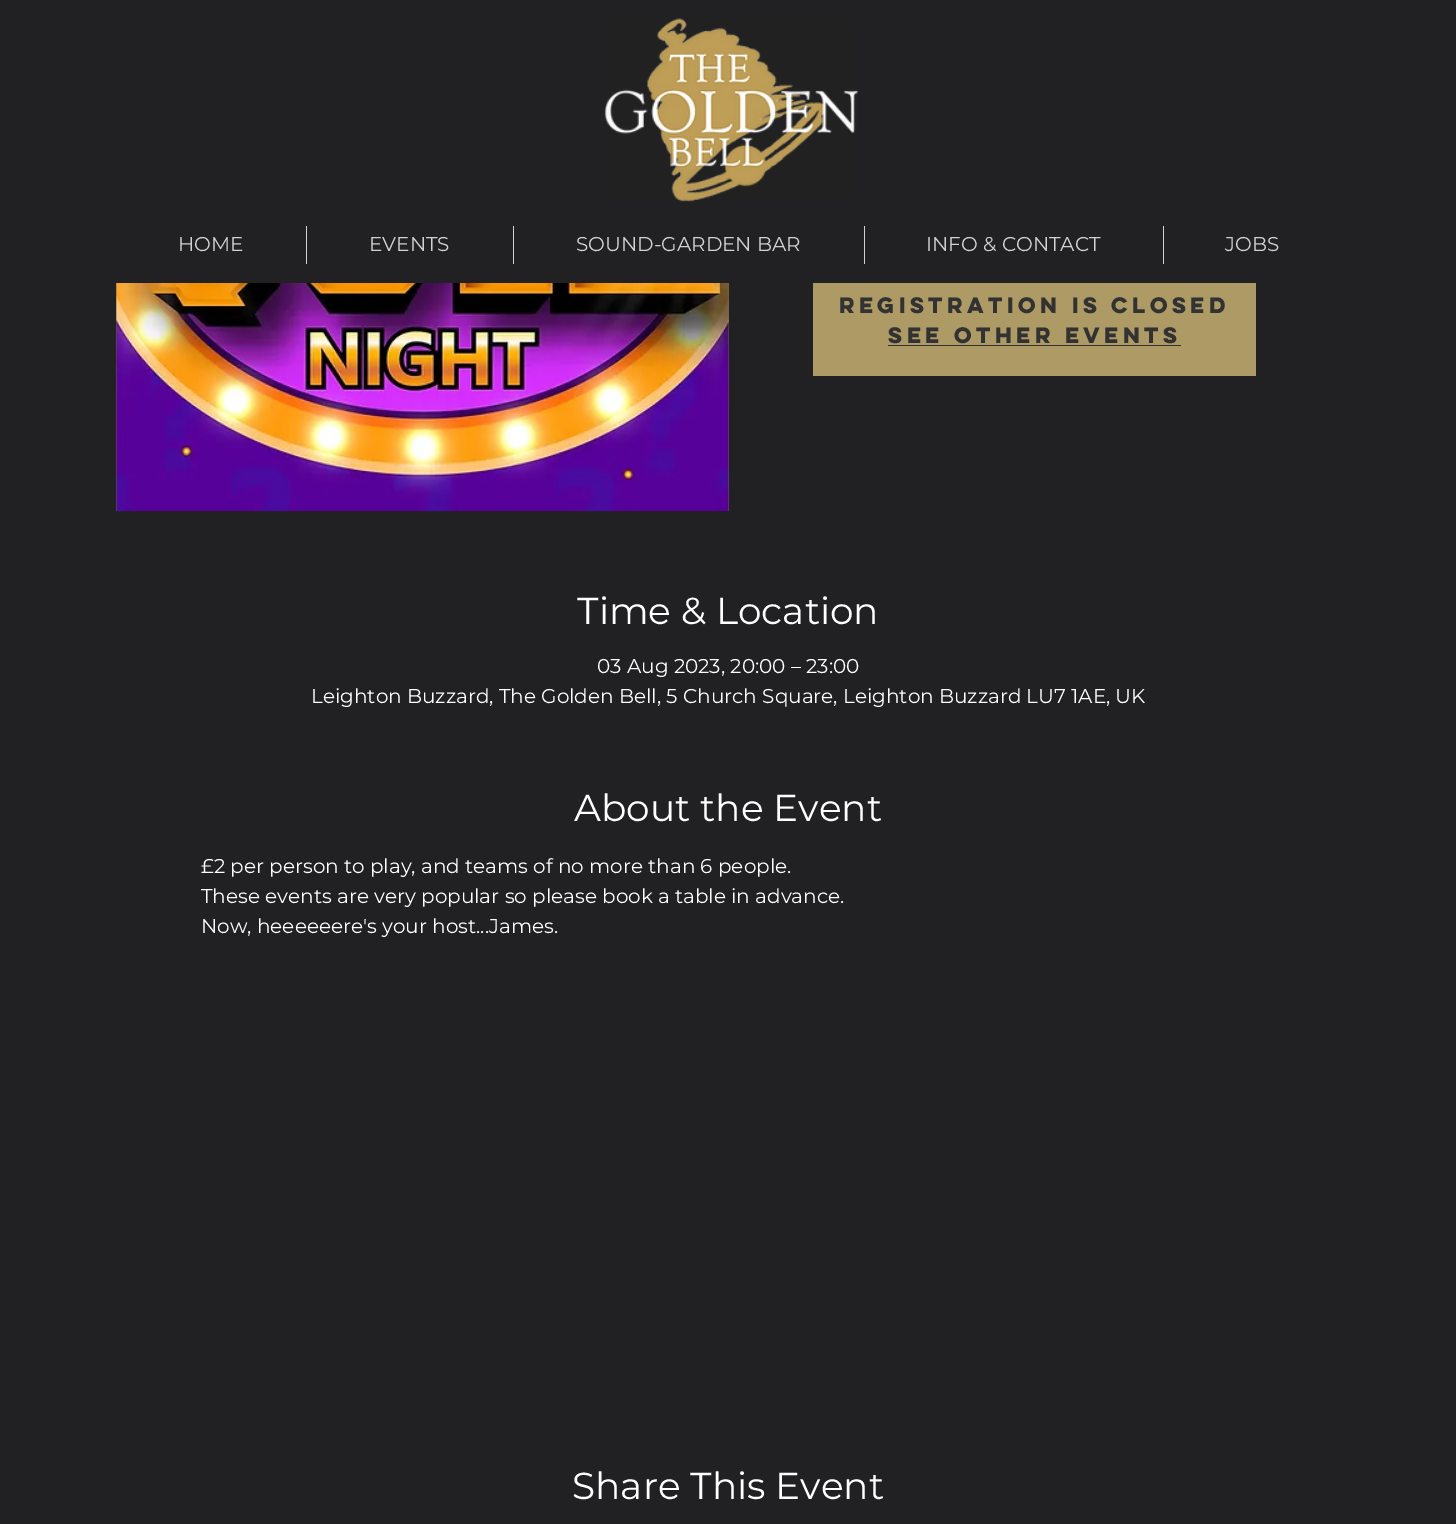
%!PS-Adobe-3.0
%%BoundingBox: 0 0 1456 1524
%%LanguageLevel: 3
%%Pages: 1
%%EndComments
%%BeginProlog
/setink { 3 { 255 div 3 1 roll } repeat setrgbcolor } def
/usefont { [ exch dup neg 0 0 3 -1 roll 0 0 ] selectfont } def
/drawtext { setink usefont moveto show } def
/fillbox { setink rectfill } def
/drawimage { 5 dict begin { /h /w /y /x /name } { exch def } forall
  gsave x y translate w h scale
  w h 8 [w 0 0 h 0 0] name (r) file false 3 colorimage grestore end } def
%%EndProlog
%%BeginSetup
<< /PageSize [1456 1524] >> setpagedevice
%%EndSetup
%%Page: 1 1
0 1524 translate 1 -1 scale
4 setmiterlimit
0 0 1456 1524 33 32 35 fillbox
(assets/img1.rgb) 604 18 254 184 drawimage
(HOME) 178 251 /Montserrat-Regular 20 210 210 210 drawtext
306 226 1 38 210 210 210 fillbox
(EVENTS) 369 251 /Montserrat-Regular 20 210 210 210 drawtext
513 226 1 38 210 210 210 fillbox
(SOUND-GARDEN BAR) 576 251 /Montserrat-Regular 20 210 210 210 drawtext
864 226 1 38 210 210 210 fillbox
(INFO & CONTACT) 926 251 /Montserrat-Regular 20 210 210 210 drawtext
1163 226 1 38 210 210 210 fillbox
(JOBS) 1225 251 /Montserrat-Regular 20 210 210 210 drawtext
116 283 613 228 116 103 67 fillbox
(assets/img2.rgb) 116 283 613 228 drawimage
813 283 443 93 174 154 100 fillbox
(Registration is closed) 839 313 /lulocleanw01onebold-Bold 20 50 50 50 drawtext
(See other events) 888 343 /lulocleanw01onebold-Bold 20 50 50 50 drawtext
888 345 293 1 50 50 50 fillbox
(Time & Location) 577 624 /Montserrat-Regular 37.5 255 255 255 drawtext
(03 Aug 2023, 20:00 – 23:00) 597 673 /Montserrat-Regular 20 255 255 255 drawtext
(Leighton Buzzard, The Golden Bell, 5 Church Square, Leighton Buzzard LU7 1AE, UK) 311 703 /Montserrat-Regular 20 255 255 255 drawtext
(About the Event) 574 821 /Montserrat-Regular 37.5 255 255 255 drawtext
(£2 per person to play, and teams of no more than 6 people.) 201 873 /Montserrat-Regular 20 255 255 255 drawtext
(These events are very popular so please book a table in advance.) 201 903 /Montserrat-Regular 20 255 255 255 drawtext
(Now, heeeeeere's your host...James.) 201 933 /Montserrat-Regular 20 255 255 255 drawtext
(Share This Event) 572 1499 /Montserrat-Regular 37.5 255 255 255 drawtext
showpage
%%EOF
